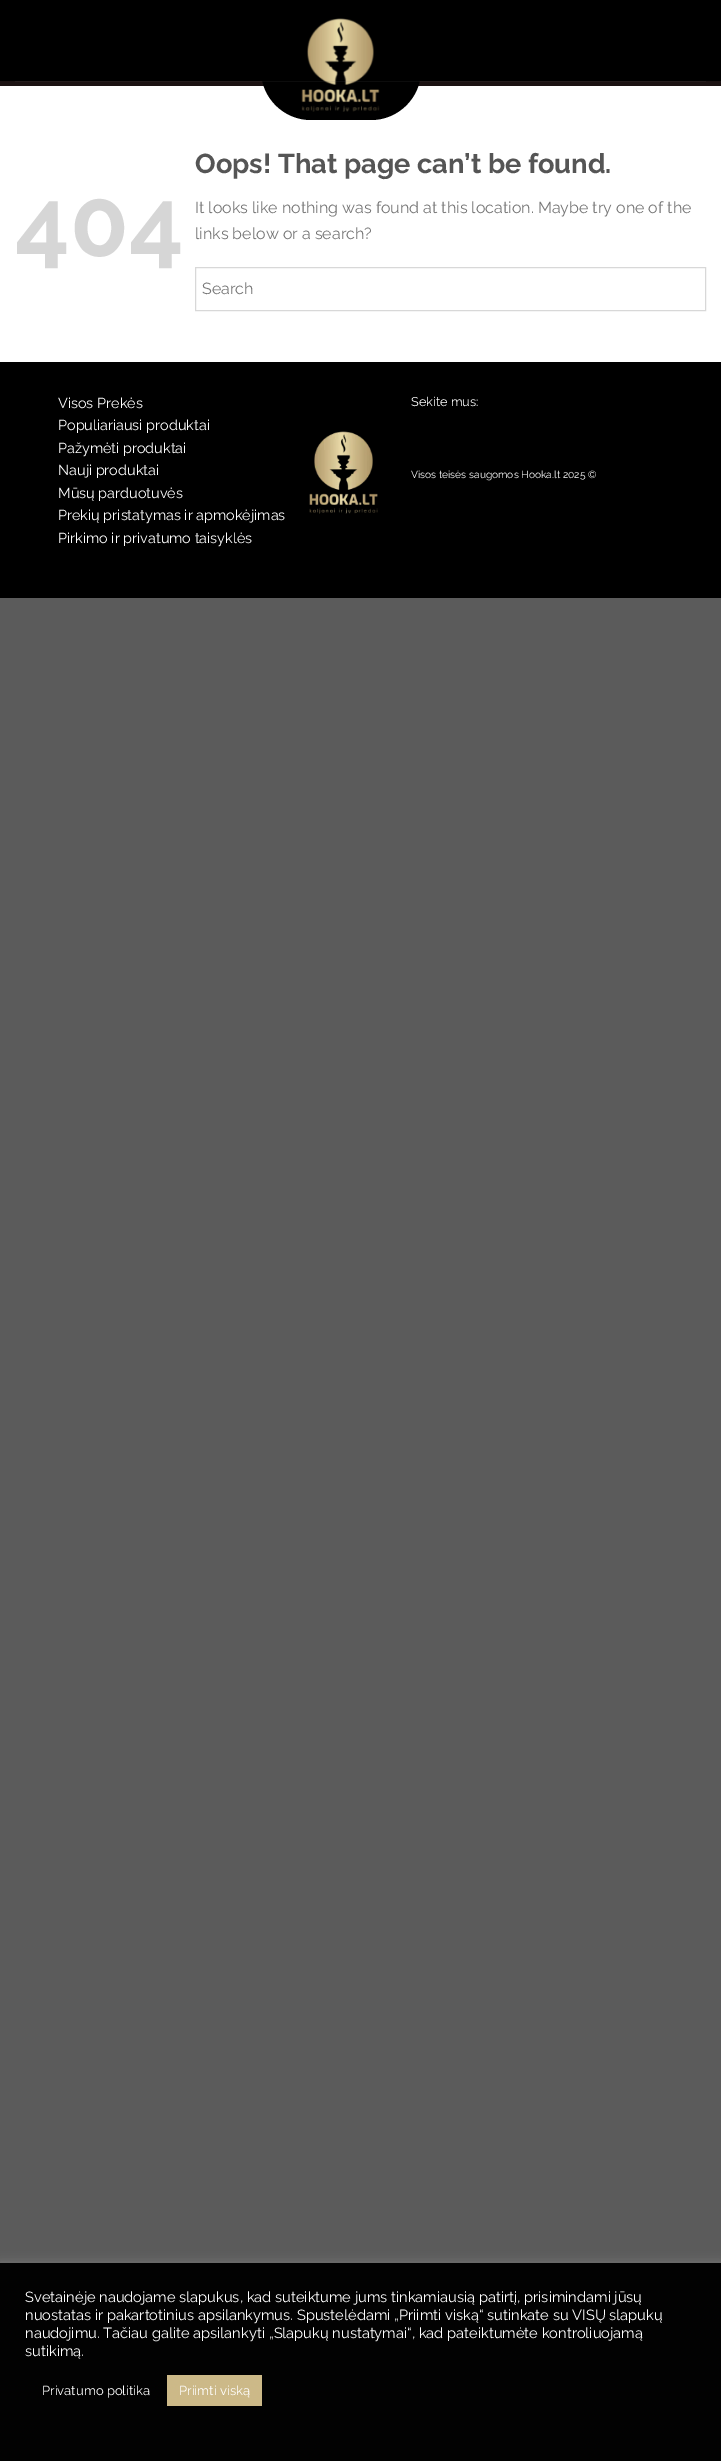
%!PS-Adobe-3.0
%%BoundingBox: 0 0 721 2461
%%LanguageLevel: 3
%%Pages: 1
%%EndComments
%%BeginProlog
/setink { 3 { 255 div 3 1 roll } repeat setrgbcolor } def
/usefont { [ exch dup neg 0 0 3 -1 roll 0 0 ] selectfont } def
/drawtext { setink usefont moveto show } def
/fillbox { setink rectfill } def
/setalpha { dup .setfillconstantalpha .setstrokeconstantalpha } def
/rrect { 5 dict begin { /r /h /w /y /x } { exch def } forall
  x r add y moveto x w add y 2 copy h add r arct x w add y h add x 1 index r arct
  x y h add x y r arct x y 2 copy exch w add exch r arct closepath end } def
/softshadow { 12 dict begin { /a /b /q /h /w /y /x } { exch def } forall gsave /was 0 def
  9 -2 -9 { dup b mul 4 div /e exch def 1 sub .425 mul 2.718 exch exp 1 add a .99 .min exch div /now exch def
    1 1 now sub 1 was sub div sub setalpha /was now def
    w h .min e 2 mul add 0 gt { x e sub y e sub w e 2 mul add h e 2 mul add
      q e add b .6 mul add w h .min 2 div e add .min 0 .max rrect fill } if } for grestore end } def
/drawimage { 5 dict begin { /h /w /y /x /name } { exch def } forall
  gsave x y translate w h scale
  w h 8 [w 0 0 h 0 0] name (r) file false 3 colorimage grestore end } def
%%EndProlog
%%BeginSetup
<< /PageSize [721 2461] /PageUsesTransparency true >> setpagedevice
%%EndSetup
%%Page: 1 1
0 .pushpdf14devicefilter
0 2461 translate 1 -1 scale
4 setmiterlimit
0 0 721 2461 91 91 91 fillbox
0 86 721 276 255 255 255 fillbox
0 0 721 81 0 0 0 fillbox
0 81 721 5 27 18 18 fillbox
0 0 0 setink
261 0 moveto 421 0 lineto 421 70 lineto 421 97.5 398.5 120 371 120 curveto 311 120 lineto 283.5 120 261 97.5 261 70 curveto closepath fill
(assets/img1.rgb) 301 18 79 94 drawimage
0.1 setalpha
15 81 691 1 119 119 119 fillbox
1 setalpha
(404) 15 256 /Raleway-Bold 96 214 214 214 drawtext
(Oops! That page can’t be found.) 195 173 /Raleway-Bold 27.25 85 85 85 drawtext
(It looks like nothing was found at this location. Maybe try one of the) 195 213 /Raleway-Regular 16 119 119 119 drawtext
(links below or a search?) 195 239 /Raleway-Regular 16 119 119 119 drawtext
216 216 216 setink
195.5 267.5 510 43 rectstroke
(Search) 202 294 /Raleway-Regular 16 119 119 119 drawtext
0 362 721 236 0 0 0 fillbox
(Visos Prekės) 58 408 /Raleway-Regular 14.4 255 255 255 drawtext
(Populiariausi produktai) 58 430 /Raleway-Regular 14.4 255 255 255 drawtext
(Pažymėti produktai) 58 453 /Raleway-Regular 14.4 255 255 255 drawtext
(Nauji produktai) 58 475 /Raleway-Regular 14.4 255 255 255 drawtext
(Mūsų parduotuvės) 58 498 /Raleway-Regular 14.4 255 255 255 drawtext
(Prekių pristatymas ir apmokėjimas) 58 520 /Raleway-Regular 14.4 255 255 255 drawtext
(Pirkimo ir privatumo taisyklės) 58 543 /Raleway-Regular 14.4 255 255 255 drawtext
(assets/img2.rgb) 309 431 69 83 drawimage
(Sekite mus:) 411 406 /Raleway-Regular 12.75 255 255 255 drawtext
(Visos teisės saugomos Hooka.lt 2025 ©) 411 478 /Raleway-Regular 10.25 255 255 255 drawtext
172 171 171 setink
0 2262 721 198 0 5 0.3 softshadow
0 2263 721 198 2 2 2 fillbox
(Svetainėje naudojame slapukus, kad suteiktume jums tinkamiausią patirtį, prisimindami jūsų) 25 2302 /Raleway-Regular 14.65 255 255 255 drawtext
(nuostatas ir pakartotinius apsilankymus. Spustelėdami „Priimti viską“ sutinkate su VISŲ slapukų) 25 2320 /Raleway-Regular 14.65 255 255 255 drawtext
(naudojimu. Tačiau galite apsilankyti „Slapukų nustatymai“, kad pateiktumėte kontroliuojamą) 25 2338 /Raleway-Regular 14.65 255 255 255 drawtext
(sutikimą.) 25 2356 /Raleway-Regular 14.65 255 255 255 drawtext
(Privatumo politika) 42 2395 /Raleway-Regular 13 255 255 255 drawtext
167 2375 95 31 204 185 136 fillbox
(Priimti viską) 179 2395 /Raleway-Regular 13 255 255 255 drawtext
.poppdf14devicefilter showpage
%%EOF
